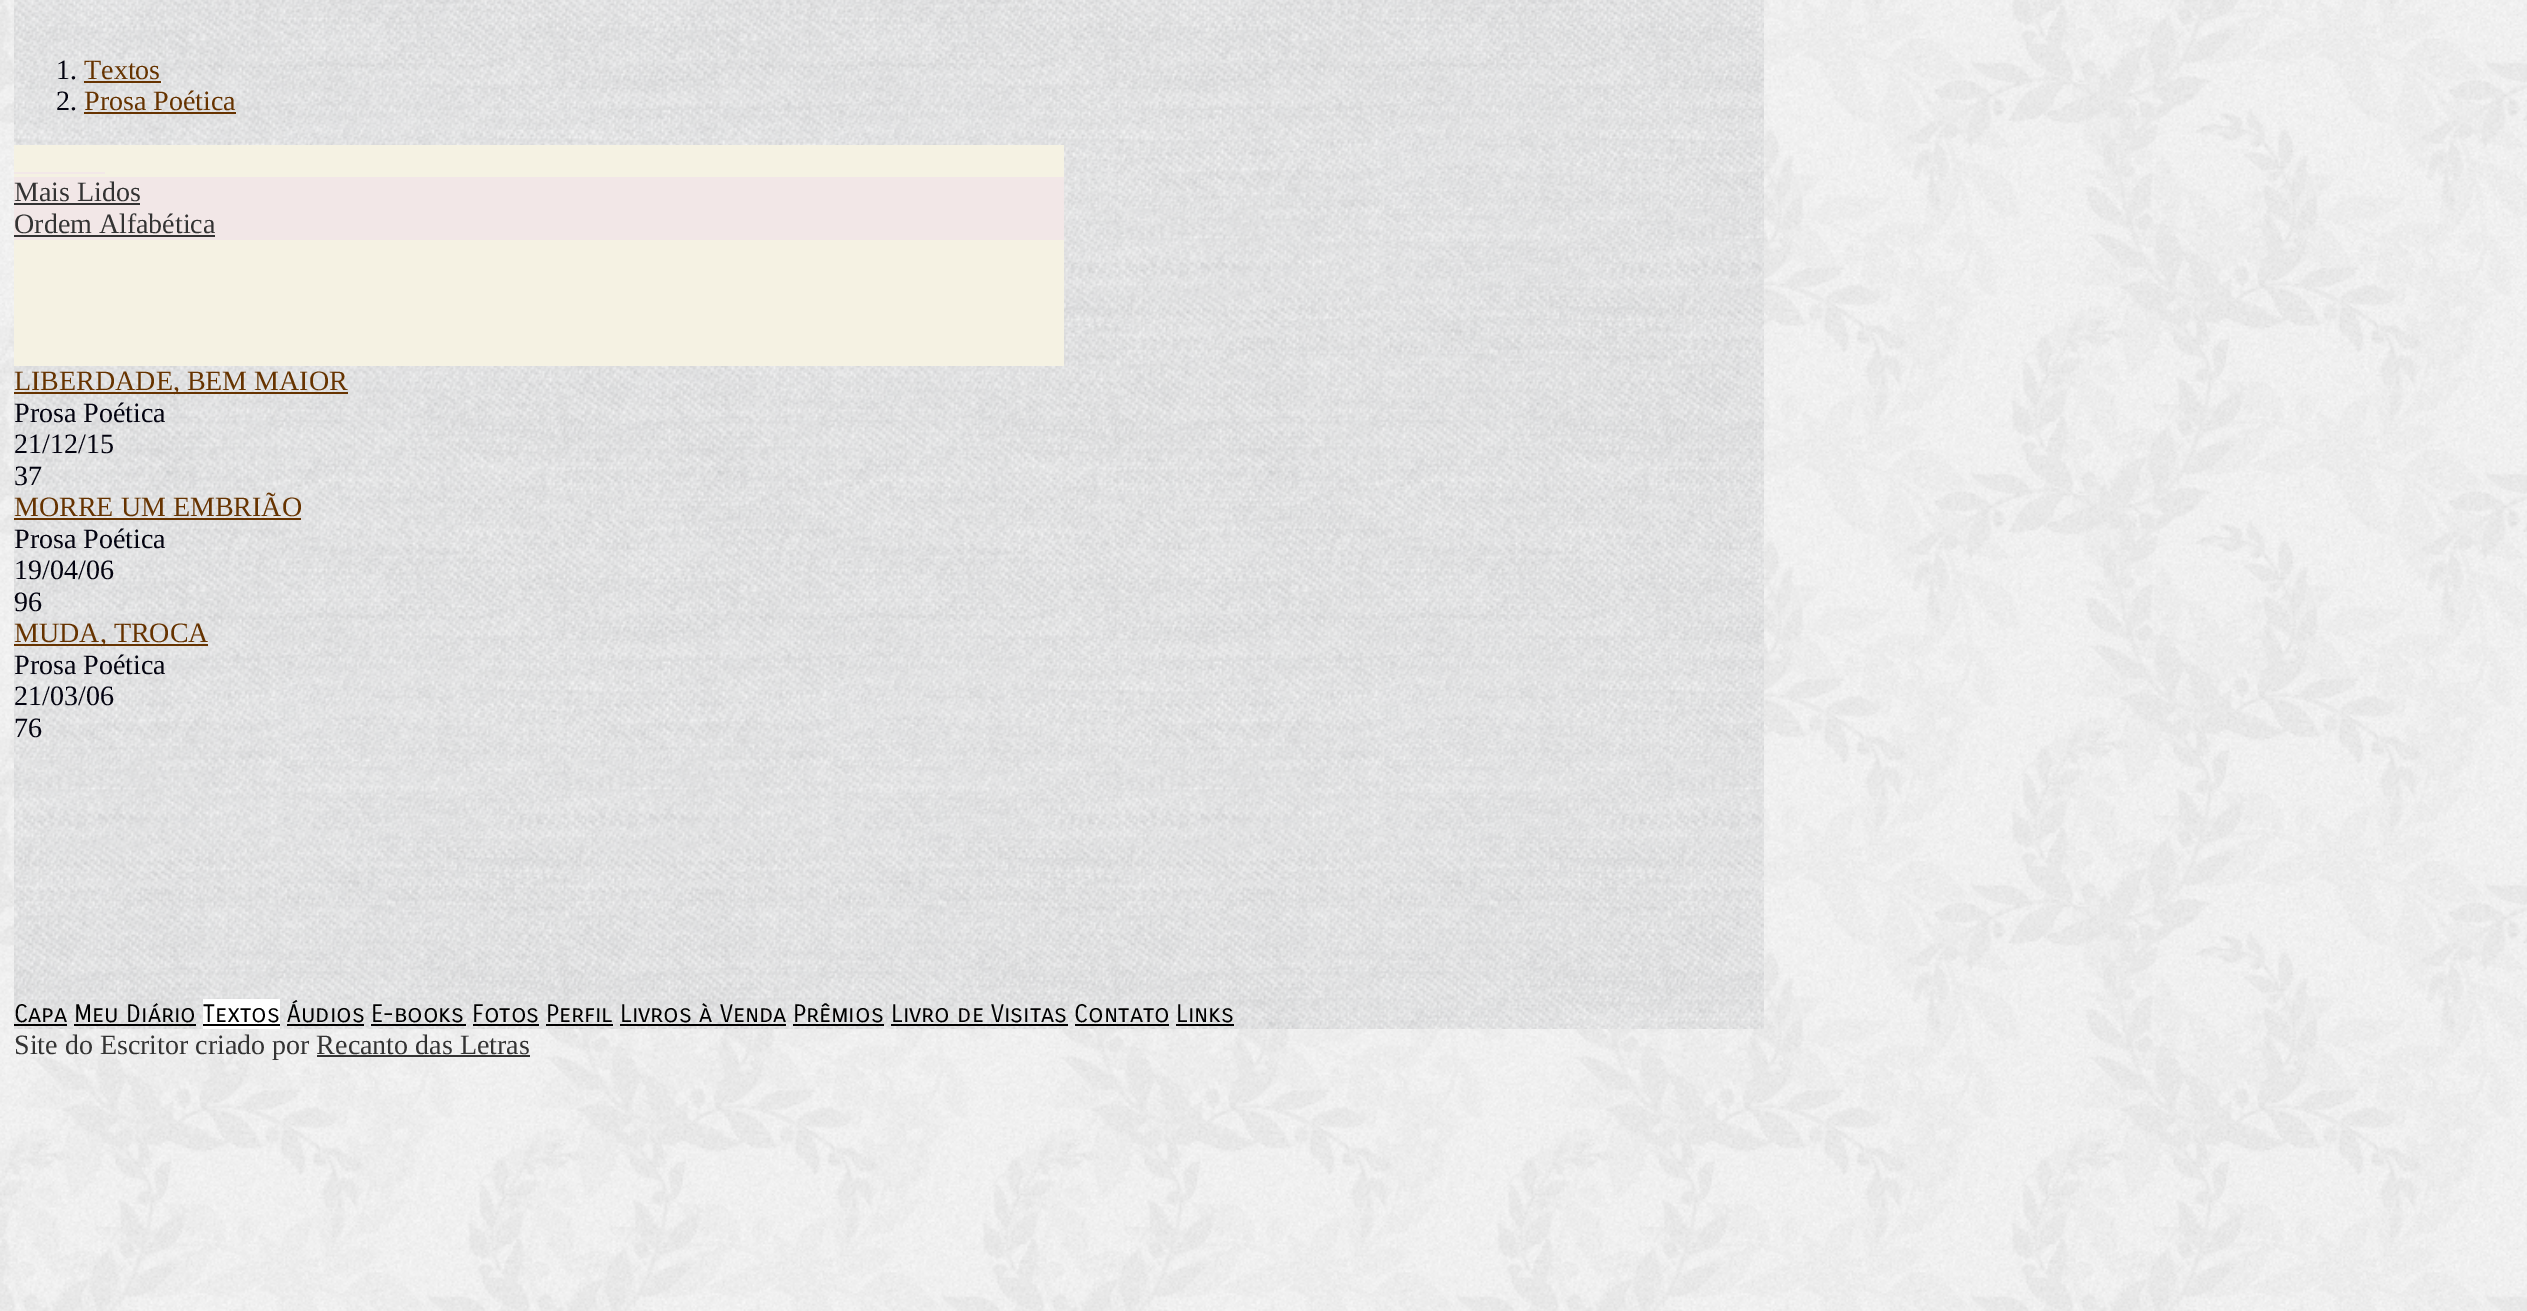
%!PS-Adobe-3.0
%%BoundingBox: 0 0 2527 1311
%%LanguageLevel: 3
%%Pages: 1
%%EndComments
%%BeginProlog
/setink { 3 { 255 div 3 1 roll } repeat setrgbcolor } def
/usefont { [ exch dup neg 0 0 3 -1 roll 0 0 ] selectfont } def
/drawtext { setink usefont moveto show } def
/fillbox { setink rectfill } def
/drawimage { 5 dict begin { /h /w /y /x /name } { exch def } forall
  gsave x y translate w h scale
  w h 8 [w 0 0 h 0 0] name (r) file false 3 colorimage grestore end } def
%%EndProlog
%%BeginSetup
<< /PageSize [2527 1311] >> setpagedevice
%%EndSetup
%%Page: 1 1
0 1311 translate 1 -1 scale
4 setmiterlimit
0 0 2527 1311 255 255 255 fillbox
(assets/img1.rgb) 0 0 2527 1311 drawimage
(assets/img2.rgb) 14 0 1750 1029 drawimage
(1.) 56 79 /LiberationSerif-Regular 28 3 3 16 drawtext
(Textos) 84 79 /LiberationSerif-Regular 28 102 51 0 drawtext
84 81 77 2 102 51 0 fillbox
(2.) 56 110 /LiberationSerif-Regular 28 3 3 16 drawtext
(Prosa Poética) 84 110 /LiberationSerif-Regular 28 102 51 0 drawtext
84 112 152 2 102 51 0 fillbox
14 145 1050 32 245 242 227 fillbox
14 172 91 2 243 232 232 fillbox
14 177 1050 63 242 231 231 fillbox
(Mais Lidos) 14 201 /LiberationSerif-Regular 28 51 51 51 drawtext
14 203 126 2 51 51 51 fillbox
(Ordem Alfabética) 14 233 /LiberationSerif-Regular 28 51 51 51 drawtext
14 235 201 2 51 51 51 fillbox
14 240 1050 126 245 242 227 fillbox
14 392 334 2 102 51 0 fillbox
(LIBERDADE, BEM MAIOR) 14 390 /LiberationSerif-Regular 28 102 51 0 drawtext
(Prosa Poética) 14 422 /LiberationSerif-Regular 28 3 3 16 drawtext
(21/12/15) 14 453 /LiberationSerif-Regular 28 3 3 16 drawtext
(37) 14 485 /LiberationSerif-Regular 28 3 3 16 drawtext
(MORRE UM EMBRIÃO) 14 516 /LiberationSerif-Regular 28 102 51 0 drawtext
14 518 287 2 102 51 0 fillbox
(Prosa Poética) 14 548 /LiberationSerif-Regular 28 3 3 16 drawtext
(19/04/06) 14 579 /LiberationSerif-Regular 28 3 3 16 drawtext
(96) 14 611 /LiberationSerif-Regular 28 3 3 16 drawtext
14 644 194 2 102 51 0 fillbox
(MUDA, TROCA) 14 642 /LiberationSerif-Regular 28 102 51 0 drawtext
(Prosa Poética) 14 674 /LiberationSerif-Regular 28 3 3 16 drawtext
(21/03/06) 14 705 /LiberationSerif-Regular 28 3 3 16 drawtext
(76) 14 737 /LiberationSerif-Regular 28 3 3 16 drawtext
(Capa) 14 1022 /CarroisGothicSC-Regular 24.5 0 0 0 drawtext
14 1024 53 2 0 0 0 fillbox
(Meu Diário) 74 1022 /CarroisGothicSC-Regular 24.5 0 0 0 drawtext
74 1024 122 2 0 0 0 fillbox
203 999 77 30 255 255 255 fillbox
(Textos) 203 1022 /CarroisGothicSC-Regular 24.5 0 0 0 drawtext
203 1024 77 2 0 0 0 fillbox
(Áudios) 287 1022 /CarroisGothicSC-Regular 24.5 0 0 0 drawtext
287 1024 77 2 0 0 0 fillbox
(E-books) 371 1022 /CarroisGothicSC-Regular 24.5 0 0 0 drawtext
371 1024 95 2 0 0 0 fillbox
(Fotos) 472 1022 /CarroisGothicSC-Regular 24.5 0 0 0 drawtext
473 1024 66 2 0 0 0 fillbox
(Perfil) 546 1022 /CarroisGothicSC-Regular 24.5 0 0 0 drawtext
546 1024 67 2 0 0 0 fillbox
(Livros à Venda) 620 1022 /CarroisGothicSC-Regular 24.5 0 0 0 drawtext
620 1024 166 2 0 0 0 fillbox
(Prêmios) 793 1022 /CarroisGothicSC-Regular 24.5 0 0 0 drawtext
793 1024 91 2 0 0 0 fillbox
(Livro de Visitas) 891 1022 /CarroisGothicSC-Regular 24.5 0 0 0 drawtext
891 1024 177 2 0 0 0 fillbox
(Contato) 1074 1022 /CarroisGothicSC-Regular 24.5 0 0 0 drawtext
1075 1024 94 2 0 0 0 fillbox
(Links) 1176 1022 /CarroisGothicSC-Regular 24.5 0 0 0 drawtext
1176 1024 58 2 0 0 0 fillbox
(Site do Escritor criado por Recanto das Letras) 14 1054 /LiberationSerif-Regular 28 51 51 51 drawtext
317 1055 213 2 51 51 51 fillbox
showpage
%%EOF
